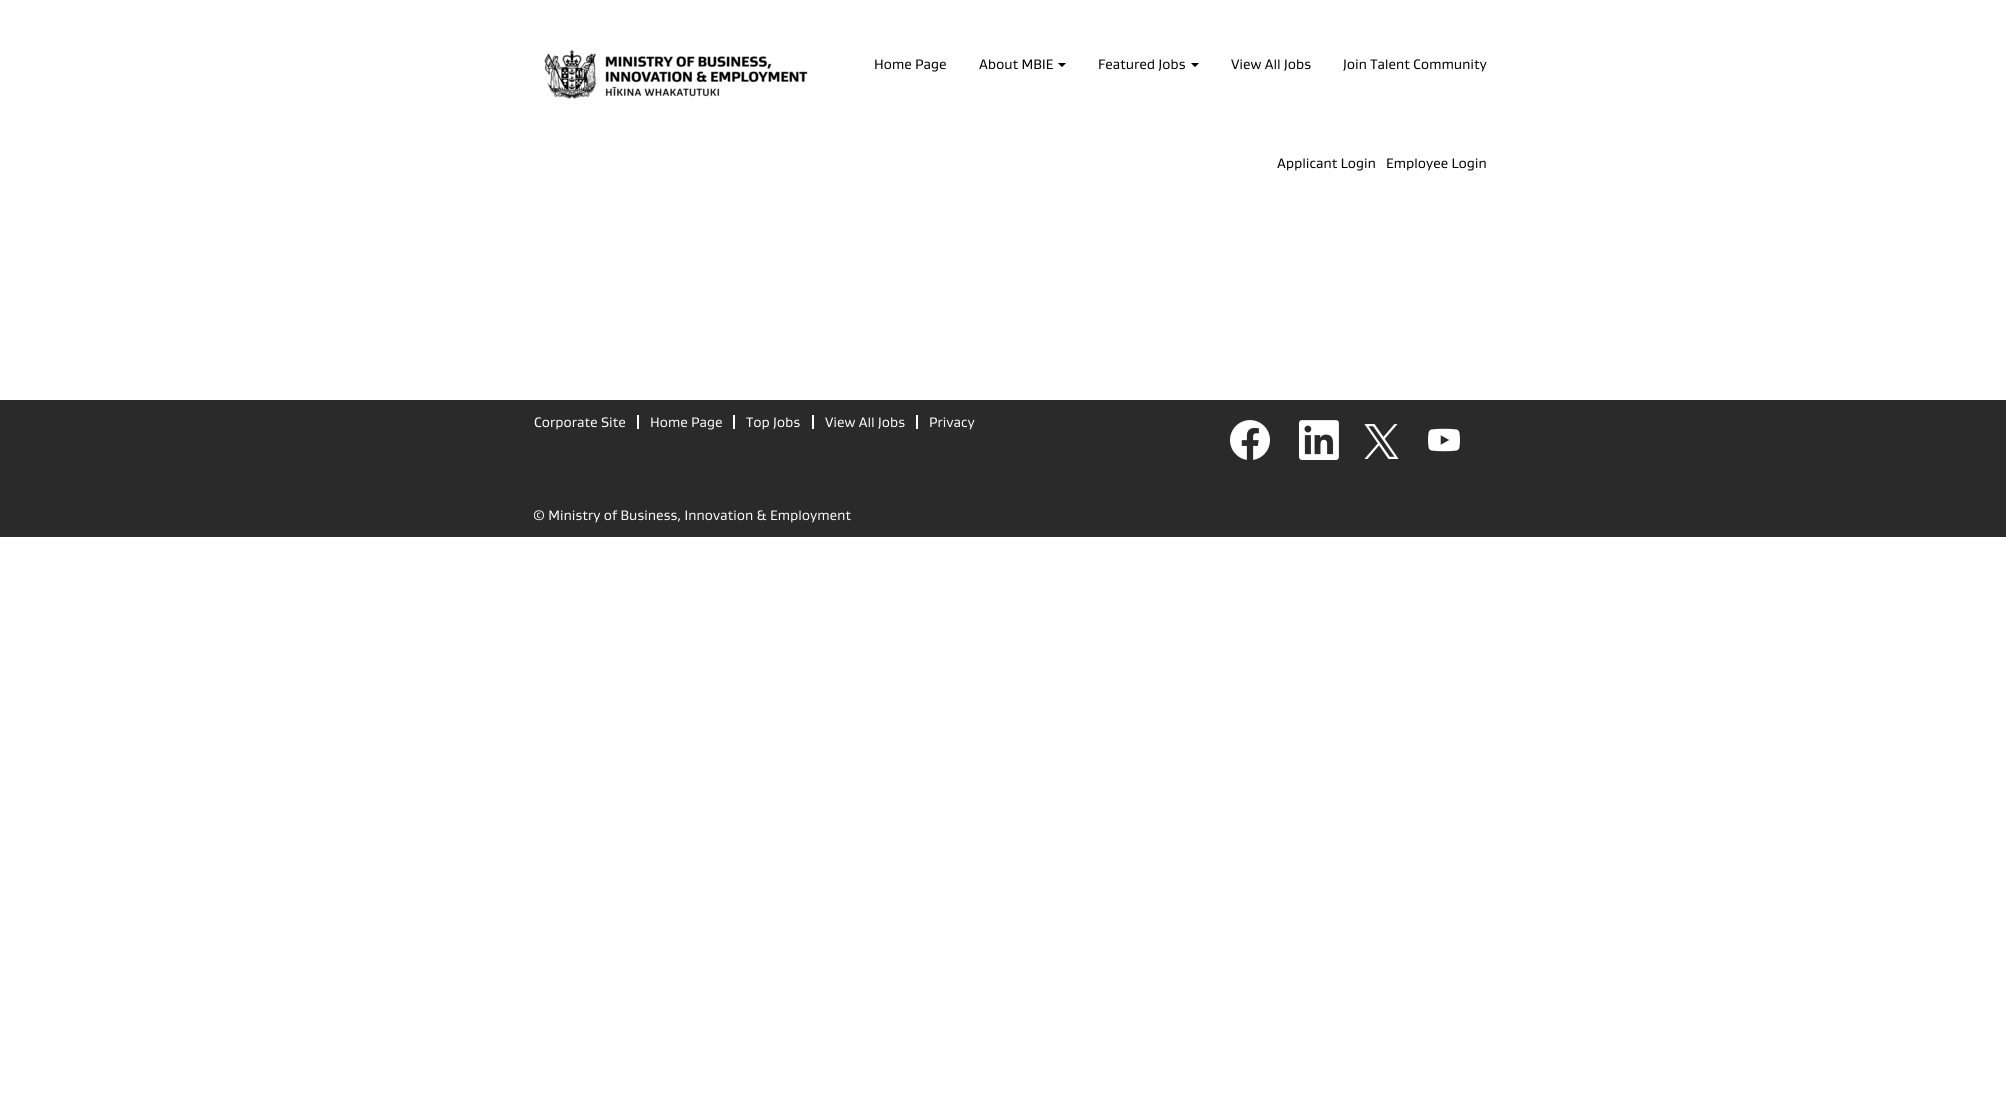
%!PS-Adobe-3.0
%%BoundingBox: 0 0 2006 1111
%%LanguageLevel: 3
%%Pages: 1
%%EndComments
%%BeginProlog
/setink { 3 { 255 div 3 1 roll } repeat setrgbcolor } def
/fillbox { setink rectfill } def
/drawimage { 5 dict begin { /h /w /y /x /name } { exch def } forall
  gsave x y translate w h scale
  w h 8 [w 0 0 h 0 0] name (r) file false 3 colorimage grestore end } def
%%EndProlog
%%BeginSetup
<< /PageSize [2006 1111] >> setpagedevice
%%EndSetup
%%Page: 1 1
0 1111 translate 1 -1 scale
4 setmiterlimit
0 0 2006 1111 255 255 255 fillbox
(assets/img1.rgb) 544 50 264 49 drawimage
(assets/img2.rgb) 875 59 71 13 drawimage
(assets/img3.rgb) 979 59 74 11 drawimage
0 0 0 setink
1058 63 moveto 1066 63 lineto 1062 67 lineto closepath fill
(assets/img4.rgb) 1099 59 86 12 drawimage
1191 63 moveto 1199 63 lineto 1195 67 lineto closepath fill
(assets/img5.rgb) 1231 59 80 12 drawimage
(assets/img6.rgb) 1343 59 144 13 drawimage
(assets/img7.rgb) 1277 158 98 13 drawimage
(assets/img8.rgb) 1387 158 99 13 drawimage
0 400 2006 137 42 42 42 fillbox
637 415 2 14 255 255 255 fillbox
(assets/img9.rgb) 534 417 92 13 drawimage
733 415 2 14 255 255 255 fillbox
(assets/img10.rgb) 651 417 71 13 drawimage
812 415 2 14 255 255 255 fillbox
(assets/img11.rgb) 746 417 54 13 drawimage
916 415 2 14 255 255 255 fillbox
(assets/img12.rgb) 825 417 80 12 drawimage
(assets/img13.rgb) 930 417 45 13 drawimage
(assets/img14.rgb) 1230 420 40 40 drawimage
(assets/img15.rgb) 1299 420 40 40 drawimage
(assets/img16.rgb) 1364 424 35 35 drawimage
(assets/img17.rgb) 1428 428 32 24 drawimage
(assets/img18.rgb) 534 510 317 13 drawimage
showpage
%%EOF
